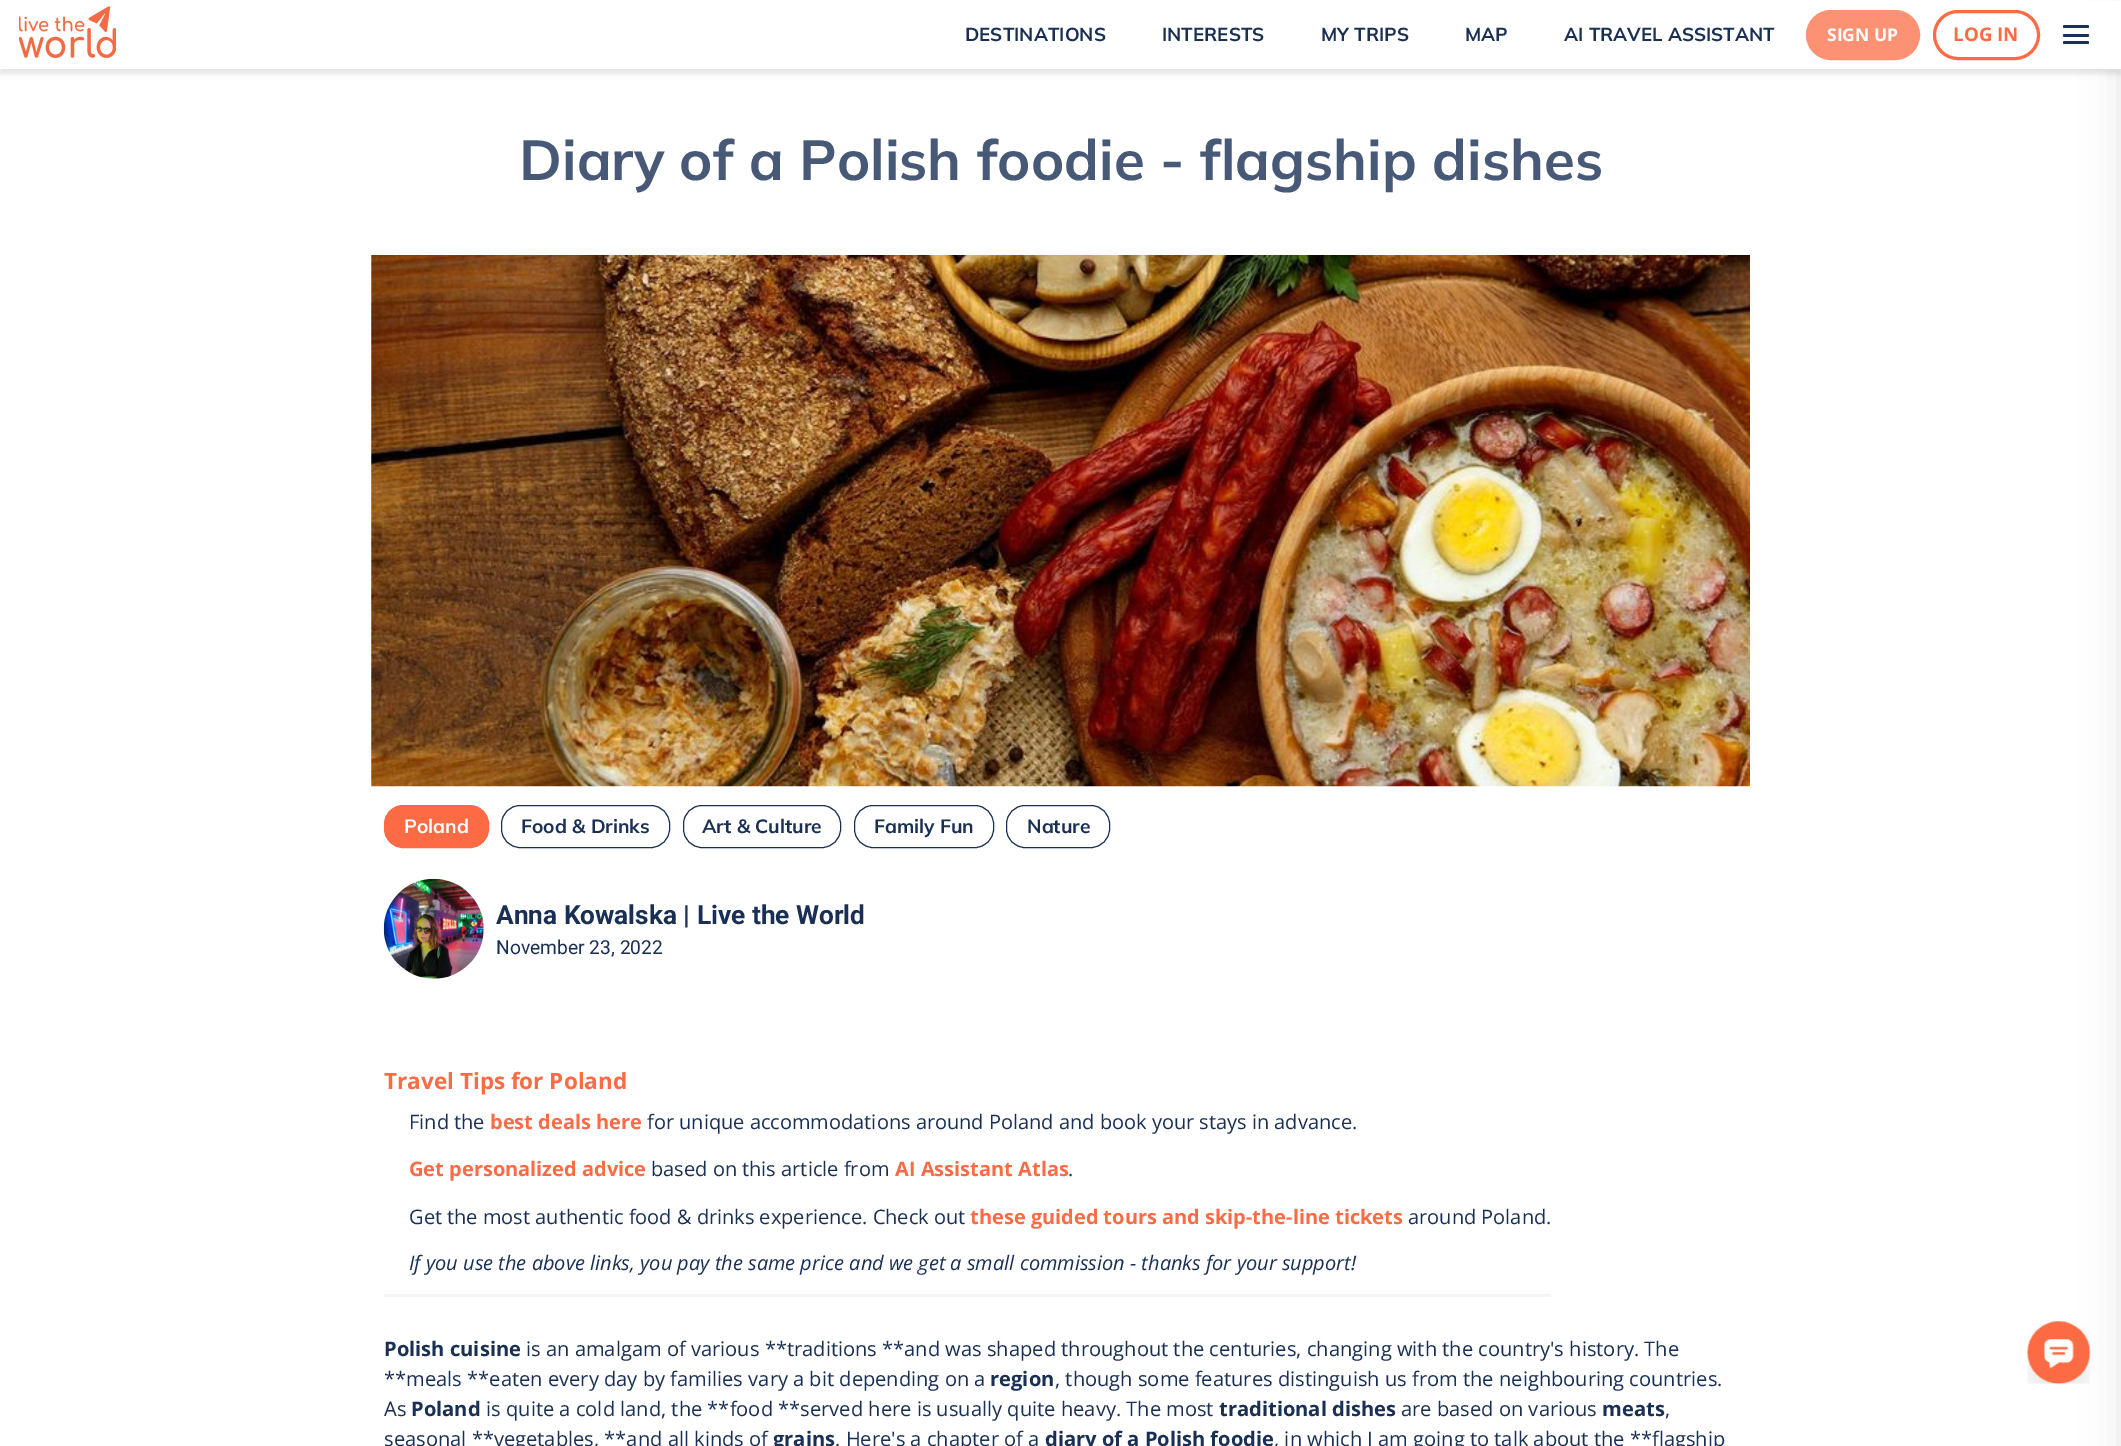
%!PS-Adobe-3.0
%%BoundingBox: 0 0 2121 1446
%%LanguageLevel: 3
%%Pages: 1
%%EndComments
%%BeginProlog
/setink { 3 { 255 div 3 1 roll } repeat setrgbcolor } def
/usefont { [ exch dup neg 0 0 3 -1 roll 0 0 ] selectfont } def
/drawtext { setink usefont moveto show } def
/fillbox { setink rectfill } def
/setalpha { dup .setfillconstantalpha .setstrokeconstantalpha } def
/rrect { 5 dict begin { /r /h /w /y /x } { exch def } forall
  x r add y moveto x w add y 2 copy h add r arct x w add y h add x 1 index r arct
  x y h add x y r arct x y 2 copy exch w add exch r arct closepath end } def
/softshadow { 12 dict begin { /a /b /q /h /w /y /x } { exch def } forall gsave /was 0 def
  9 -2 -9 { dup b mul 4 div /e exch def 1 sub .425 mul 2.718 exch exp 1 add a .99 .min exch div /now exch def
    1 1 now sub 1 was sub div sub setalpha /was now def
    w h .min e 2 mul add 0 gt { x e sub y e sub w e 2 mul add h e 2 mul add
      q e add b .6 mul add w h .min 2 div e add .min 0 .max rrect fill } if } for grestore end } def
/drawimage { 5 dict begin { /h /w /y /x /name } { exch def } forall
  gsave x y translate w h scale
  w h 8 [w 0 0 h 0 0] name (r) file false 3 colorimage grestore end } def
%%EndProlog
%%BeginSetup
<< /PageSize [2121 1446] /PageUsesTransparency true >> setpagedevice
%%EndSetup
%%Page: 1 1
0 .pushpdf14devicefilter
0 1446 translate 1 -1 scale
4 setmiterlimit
0 0 2121 1446 255 255 255 fillbox
0 0 0 setink
0 5 2121 69 0 2.5 0.1 softshadow
2121 25 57 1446 0 19 0.1 softshadow
0 1 2121 68 255 255 255 fillbox
(assets/img1.rgb) 19 6 97 52 drawimage
(DESTINATIONS) 965 41 /Mulish-Bold 18.75 25 47 84 drawtext
(INTERESTS) 1162 41 /Mulish-Bold 18.75 25 47 84 drawtext
(MY TRIPS) 1321 41 /Mulish-Bold 18.75 25 47 84 drawtext
(MAP) 1465 41 /Mulish-Bold 18.75 25 47 84 drawtext
(AI TRAVEL ASSISTANT) 1564 41 /Mulish-Bold 18.75 25 47 84 drawtext
253 145 115 setink
1807.5 11.5 111 47 23.5 rrect gsave fill grestore
3 setlinewidth
stroke
(SIGN UP) 1827 41 /OpenSans-Bold 17.5 255 255 255 drawtext
252 107 67 setink
1934.5 11.5 104 47 23.5 rrect stroke
(LOG IN) 1953 41 /OpenSans-Bold 18.75 252 107 67 drawtext
25 47 84 setink
2063 25 26 3 1.5 rrect fill
2063 34 26 3 1.5 rrect fill
2063 41 26 3 1.5 rrect fill
(Diary of a Polish foodie - flagship dishes) 519 180 /Mulish-Bold 56.25 71 89 118 drawtext
(assets/img2.rgb) 371 255 1379 532 drawimage
252 107 67 setink
384.5 805.5 104 42 18.5 rrect gsave fill grestore
1 setlinewidth
stroke
(Poland) 404 833 /Mulish-Bold 19.25 255 255 255 drawtext
25 47 84 setink
501.5 805.5 168 42 18.5 rrect stroke
(Food & Drinks) 521 833 /Mulish-Bold 19.25 25 47 84 drawtext
683.5 805.5 157 42 18.5 rrect stroke
(Art & Culture) 702 833 /Mulish-Bold 19.25 25 47 84 drawtext
854.5 805.5 139 42 18.5 rrect stroke
(Family Fun) 874 833 /Mulish-Bold 19.25 25 47 84 drawtext
1006.5 805.5 103 42 18.5 rrect stroke
(Nature) 1027 833 /Mulish-Bold 19.25 25 47 84 drawtext
(assets/img3.rgb) 383 878 101 101 drawimage
(Anna Kowalska | Live the World) 496 924 /Roboto-Bold 26.25 25 47 84 drawtext
(November 23, 2022) 496 954 /Roboto-Regular 19.25 25 47 84 drawtext
(Travel Tips for Poland) 384 1089 /OpenSans-Bold 22.5 252 107 67 drawtext
(Find the) 409 1129 /OpenSans-Regular 20 25 47 84 drawtext
(best deals here) 490 1129 /OpenSans-Bold 20 252 107 67 drawtext
(for unique accommodations around Poland and book your stays in advance.) 647 1129 /OpenSans-Regular 20 25 47 84 drawtext
(Get personalized advice) 409 1176 /OpenSans-Bold 20 252 107 67 drawtext
(based on this article from) 651 1176 /OpenSans-Regular 20 25 47 84 drawtext
(AI Assistant Atlas) 895 1176 /OpenSans-Bold 20 252 107 67 drawtext
(.) 1068 1176 /OpenSans-Regular 20 25 47 84 drawtext
(Get the most authentic food & drinks experience. Check out) 409 1224 /OpenSans-Regular 20 25 47 84 drawtext
(these guided tours and skip-the-line tickets) 970 1224 /OpenSans-Bold 20 252 107 67 drawtext
(around Poland.) 1408 1224 /OpenSans-Regular 20 25 47 84 drawtext
(If you use the above links, you pay the same price and we get a small commission - thanks for your support!) 409 1270 /OpenSans-Italic 20 25 47 84 drawtext
384 1294 1167 3 243 244 247 fillbox
(Polish cuisine) 384 1356 /OpenSans-Bold 20.12 25 47 84 drawtext
(is an amalgam of various **traditions **and was shaped throughout the centuries, changing with the country's history. The) 526 1356 /OpenSans-Regular 20.12 25 47 84 drawtext
(**meals **eaten every day by families vary a bit depending on a) 384 1386 /OpenSans-Regular 20.12 25 47 84 drawtext
(region) 990 1386 /OpenSans-Bold 20.12 25 47 84 drawtext
(, though some features distinguish us from the neighbouring countries.) 1055 1386 /OpenSans-Regular 20.12 25 47 84 drawtext
(As) 384 1416 /OpenSans-Regular 20.12 25 47 84 drawtext
(Poland) 411 1416 /OpenSans-Bold 20.12 25 47 84 drawtext
(is quite a cold land, the **food **served here is usually quite heavy. The most) 486 1416 /OpenSans-Regular 20.12 25 47 84 drawtext
(traditional dishes) 1219 1416 /OpenSans-Bold 20.12 25 47 84 drawtext
(are based on various) 1401 1416 /OpenSans-Regular 20.12 25 47 84 drawtext
(meats) 1602 1416 /OpenSans-Bold 20.12 25 47 84 drawtext
(,) 1665 1416 /OpenSans-Regular 20.12 25 47 84 drawtext
(seasonal **vegetables, **and all kinds of) 384 1446 /OpenSans-Regular 20.12 25 47 84 drawtext
(grains) 773 1446 /OpenSans-Bold 20.12 25 47 84 drawtext
(. Here's a chapter of a) 835 1446 /OpenSans-Regular 20.12 25 47 84 drawtext
(diary of a Polish foodie) 1045 1446 /OpenSans-Bold 20.12 25 47 84 drawtext
(, in which I am going to talk about the **flagship) 1274 1446 /OpenSans-Regular 20.12 25 47 84 drawtext
(assets/img4.rgb) 2027 1321 64 64 drawimage
.poppdf14devicefilter showpage
%%EOF
